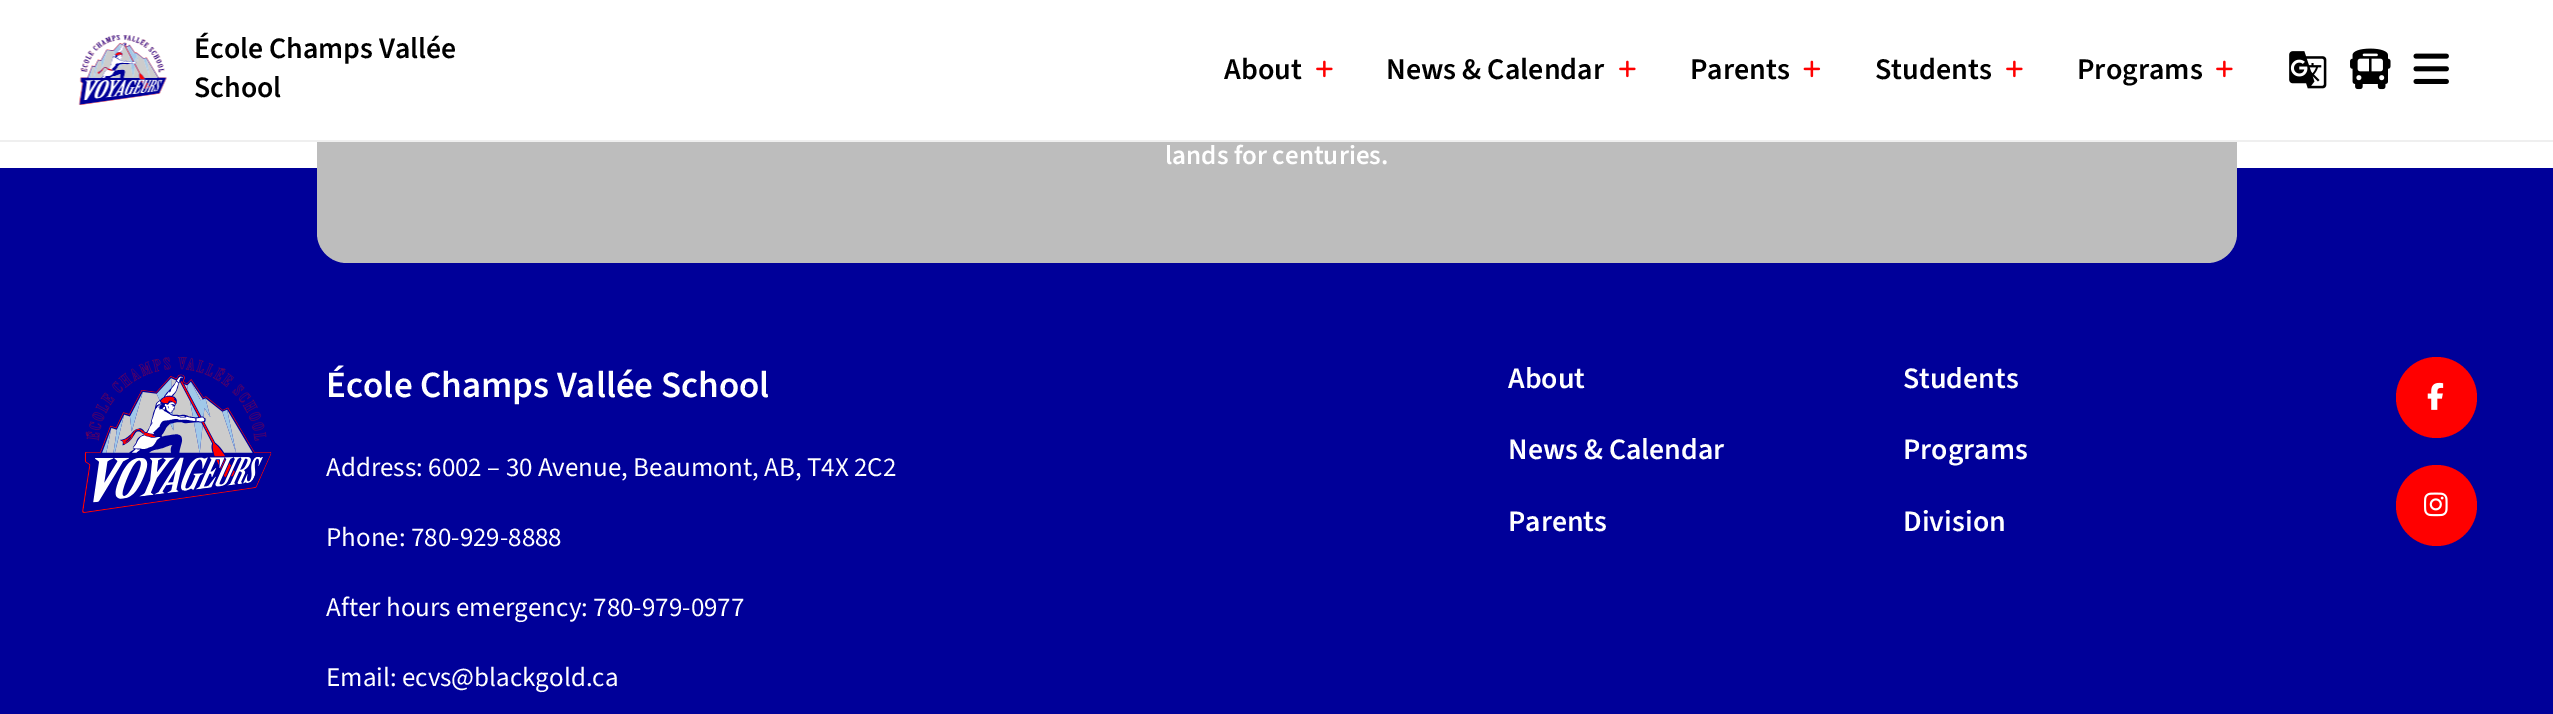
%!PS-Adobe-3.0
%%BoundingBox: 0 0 2553 714
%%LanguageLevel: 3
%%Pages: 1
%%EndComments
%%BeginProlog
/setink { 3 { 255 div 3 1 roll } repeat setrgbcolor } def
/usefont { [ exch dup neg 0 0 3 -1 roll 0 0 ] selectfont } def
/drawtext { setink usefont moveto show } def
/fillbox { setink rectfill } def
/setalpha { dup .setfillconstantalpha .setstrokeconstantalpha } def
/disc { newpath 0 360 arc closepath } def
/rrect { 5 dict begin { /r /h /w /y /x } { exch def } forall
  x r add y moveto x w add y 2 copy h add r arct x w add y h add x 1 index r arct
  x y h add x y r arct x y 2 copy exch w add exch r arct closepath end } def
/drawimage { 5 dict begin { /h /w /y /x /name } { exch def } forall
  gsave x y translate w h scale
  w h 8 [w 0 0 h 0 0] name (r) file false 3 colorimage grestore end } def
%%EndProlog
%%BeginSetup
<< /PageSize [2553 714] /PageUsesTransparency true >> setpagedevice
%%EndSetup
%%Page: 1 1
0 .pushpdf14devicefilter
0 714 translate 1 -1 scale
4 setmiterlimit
0 0 2553 714 255 255 255 fillbox
0 168 2553 546 0 0 153 fillbox
211 211 211 setink
317 -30 1920 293 30 rrect fill
0.1 setalpha
0 0 0 setink
317 -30 1920 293 30 rrect fill
1 setalpha
317 0 1920 140 255 255 255 fillbox
0 140 2553 2 239 239 239 fillbox
(assets/img1.rgb) 78 35 89 70 drawimage
(École Champs Vallée) 194 58 /SourceSans3-SemiBold 29.75 0 0 0 drawtext
(School) 194 97 /SourceSans3-SemiBold 29.75 0 0 0 drawtext
(About) 1224 79 /SourceSans3-SemiBold 30 0 0 0 drawtext
(assets/img2.rgb) 1316 60 17 18 drawimage
(News & Calendar) 1386 79 /SourceSans3-SemiBold 30 0 0 0 drawtext
(assets/img2.rgb) 1619 60 17 18 drawimage
(Parents) 1690 79 /SourceSans3-SemiBold 30 0 0 0 drawtext
(assets/img3.rgb) 1803 60 18 18 drawimage
(Students) 1875 79 /SourceSans3-SemiBold 30 0 0 0 drawtext
(assets/img2.rgb) 2006 60 17 18 drawimage
(Programs) 2077 79 /SourceSans3-SemiBold 30 0 0 0 drawtext
(assets/img2.rgb) 2216 60 17 18 drawimage
(assets/img4.rgb) 2289 51 38 38 drawimage
(assets/img5.rgb) 2350 48 41 42 drawimage
(assets/img6.rgb) 2413 53 36 31 drawimage
(lands for centuries.) 1165 164 /SourceSans3-SemiBold 27 255 255 255 drawtext
(assets/img7.rgb) 82 357 190 156 drawimage
(École Champs Vallée School) 326 397 /SourceSans3-SemiBold 37.1 255 255 255 drawtext
(Address: 6002 – 30 Avenue, Beaumont, AB, T4X 2C2) 326 476 /SourceSans3-Regular 27 255 255 255 drawtext
(Phone: 780-929-8888) 326 546 /SourceSans3-Regular 27 255 255 255 drawtext
(After hours emergency: 780-979-0977) 326 616 /SourceSans3-Regular 27 255 255 255 drawtext
(Email: ecvs@blackgold.ca) 326 686 /SourceSans3-Regular 27 255 255 255 drawtext
(About) 1508 388 /SourceSans3-SemiBold 29.75 255 255 255 drawtext
(Students) 1903 388 /SourceSans3-SemiBold 29.75 255 255 255 drawtext
(News & Calendar) 1508 459 /SourceSans3-SemiBold 29.75 255 255 255 drawtext
(Programs) 1903 459 /SourceSans3-SemiBold 29.75 255 255 255 drawtext
(Parents) 1508 531 /SourceSans3-SemiBold 29.75 255 255 255 drawtext
(Division) 1903 531 /SourceSans3-SemiBold 29.75 255 255 255 drawtext
255 0 0 setink
2436.5 397.5 40.5 disc fill
(assets/img8.rgb) 2427 382 17 28 drawimage
2436.5 505.5 40.5 disc fill
(assets/img9.rgb) 2424 492 24 25 drawimage
.poppdf14devicefilter showpage
%%EOF
